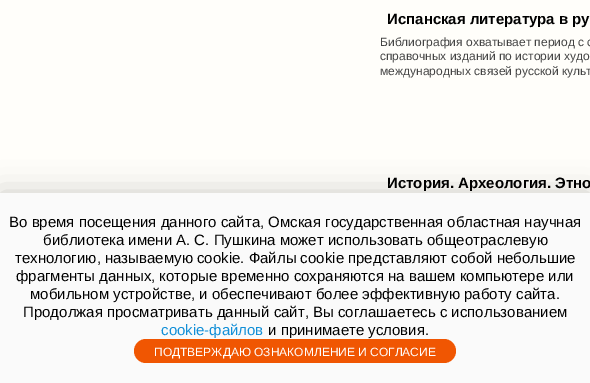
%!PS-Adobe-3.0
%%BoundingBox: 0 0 590 383
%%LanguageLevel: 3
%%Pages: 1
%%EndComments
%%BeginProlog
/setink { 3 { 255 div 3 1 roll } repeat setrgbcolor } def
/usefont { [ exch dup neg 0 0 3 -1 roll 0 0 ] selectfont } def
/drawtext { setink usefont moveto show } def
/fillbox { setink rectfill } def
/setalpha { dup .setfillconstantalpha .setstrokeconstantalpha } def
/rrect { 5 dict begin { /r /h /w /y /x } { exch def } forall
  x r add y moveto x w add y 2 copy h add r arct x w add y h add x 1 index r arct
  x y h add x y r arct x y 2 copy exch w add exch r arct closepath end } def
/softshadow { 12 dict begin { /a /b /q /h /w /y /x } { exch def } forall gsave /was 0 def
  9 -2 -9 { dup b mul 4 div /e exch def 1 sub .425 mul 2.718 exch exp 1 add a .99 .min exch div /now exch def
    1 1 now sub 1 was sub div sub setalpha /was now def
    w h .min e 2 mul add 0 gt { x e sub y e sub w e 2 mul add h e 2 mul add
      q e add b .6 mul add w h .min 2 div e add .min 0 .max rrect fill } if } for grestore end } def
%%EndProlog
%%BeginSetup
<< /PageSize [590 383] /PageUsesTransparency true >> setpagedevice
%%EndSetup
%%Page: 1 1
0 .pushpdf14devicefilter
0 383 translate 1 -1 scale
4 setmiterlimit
0 0 590 383 255 254 250 fillbox
(Испанская литература в ру) 387 24 /LiberationSans-Bold 15 0 0 0 drawtext
(Библиография охватывает период с с) 380 46 /LiberationSans-Regular 12 68 68 68 drawtext
(справочных изданий по истории худо) 380 60 /LiberationSans-Regular 12 68 68 68 drawtext
(международных связей русской культ) 380 75 /LiberationSans-Regular 12 68 68 68 drawtext
(История. Археология. Этно) 387 188 /LiberationSans-Bold 15 0 0 0 drawtext
0 193 590 190 0 15 0.2 softshadow
0 193 590 190 250 250 250 fillbox
(Во время посещения данного сайта, Омская государственная областная научная) 9 227 /LiberationSans-Regular 15 0 0 0 drawtext
(библиотека имени А. С. Пушкина может использовать общеотраслевую) 43 245 /LiberationSans-Regular 15 0 0 0 drawtext
(технологию, называемую cookie. Файлы cookie представляют собой небольшие) 15 263 /LiberationSans-Regular 15 0 0 0 drawtext
(фрагменты данных, которые временно сохраняются на вашем компьютере или) 16 281 /LiberationSans-Regular 15 0 0 0 drawtext
(мобильном устройстве, и обеспечивают более эффективную работу сайта.) 30 299 /LiberationSans-Regular 15 0 0 0 drawtext
(Продолжая просматривать данный сайт, Вы соглашаетесь с использованием) 23 317 /LiberationSans-Regular 15 0 0 0 drawtext
(cookie-файлов) 161 335 /LiberationSans-Regular 15 18 143 215 drawtext
(и принимаете условия.) 268 335 /LiberationSans-Regular 15 0 0 0 drawtext
240 86 2 setink
134 339 322 24 12 rrect fill
(ПОДТВЕРЖДАЮ ОЗНАКОМЛЕНИЕ И СОГЛАСИЕ) 154 356 /LiberationSans-Regular 12 255 255 255 drawtext
.poppdf14devicefilter showpage
%%EOF
